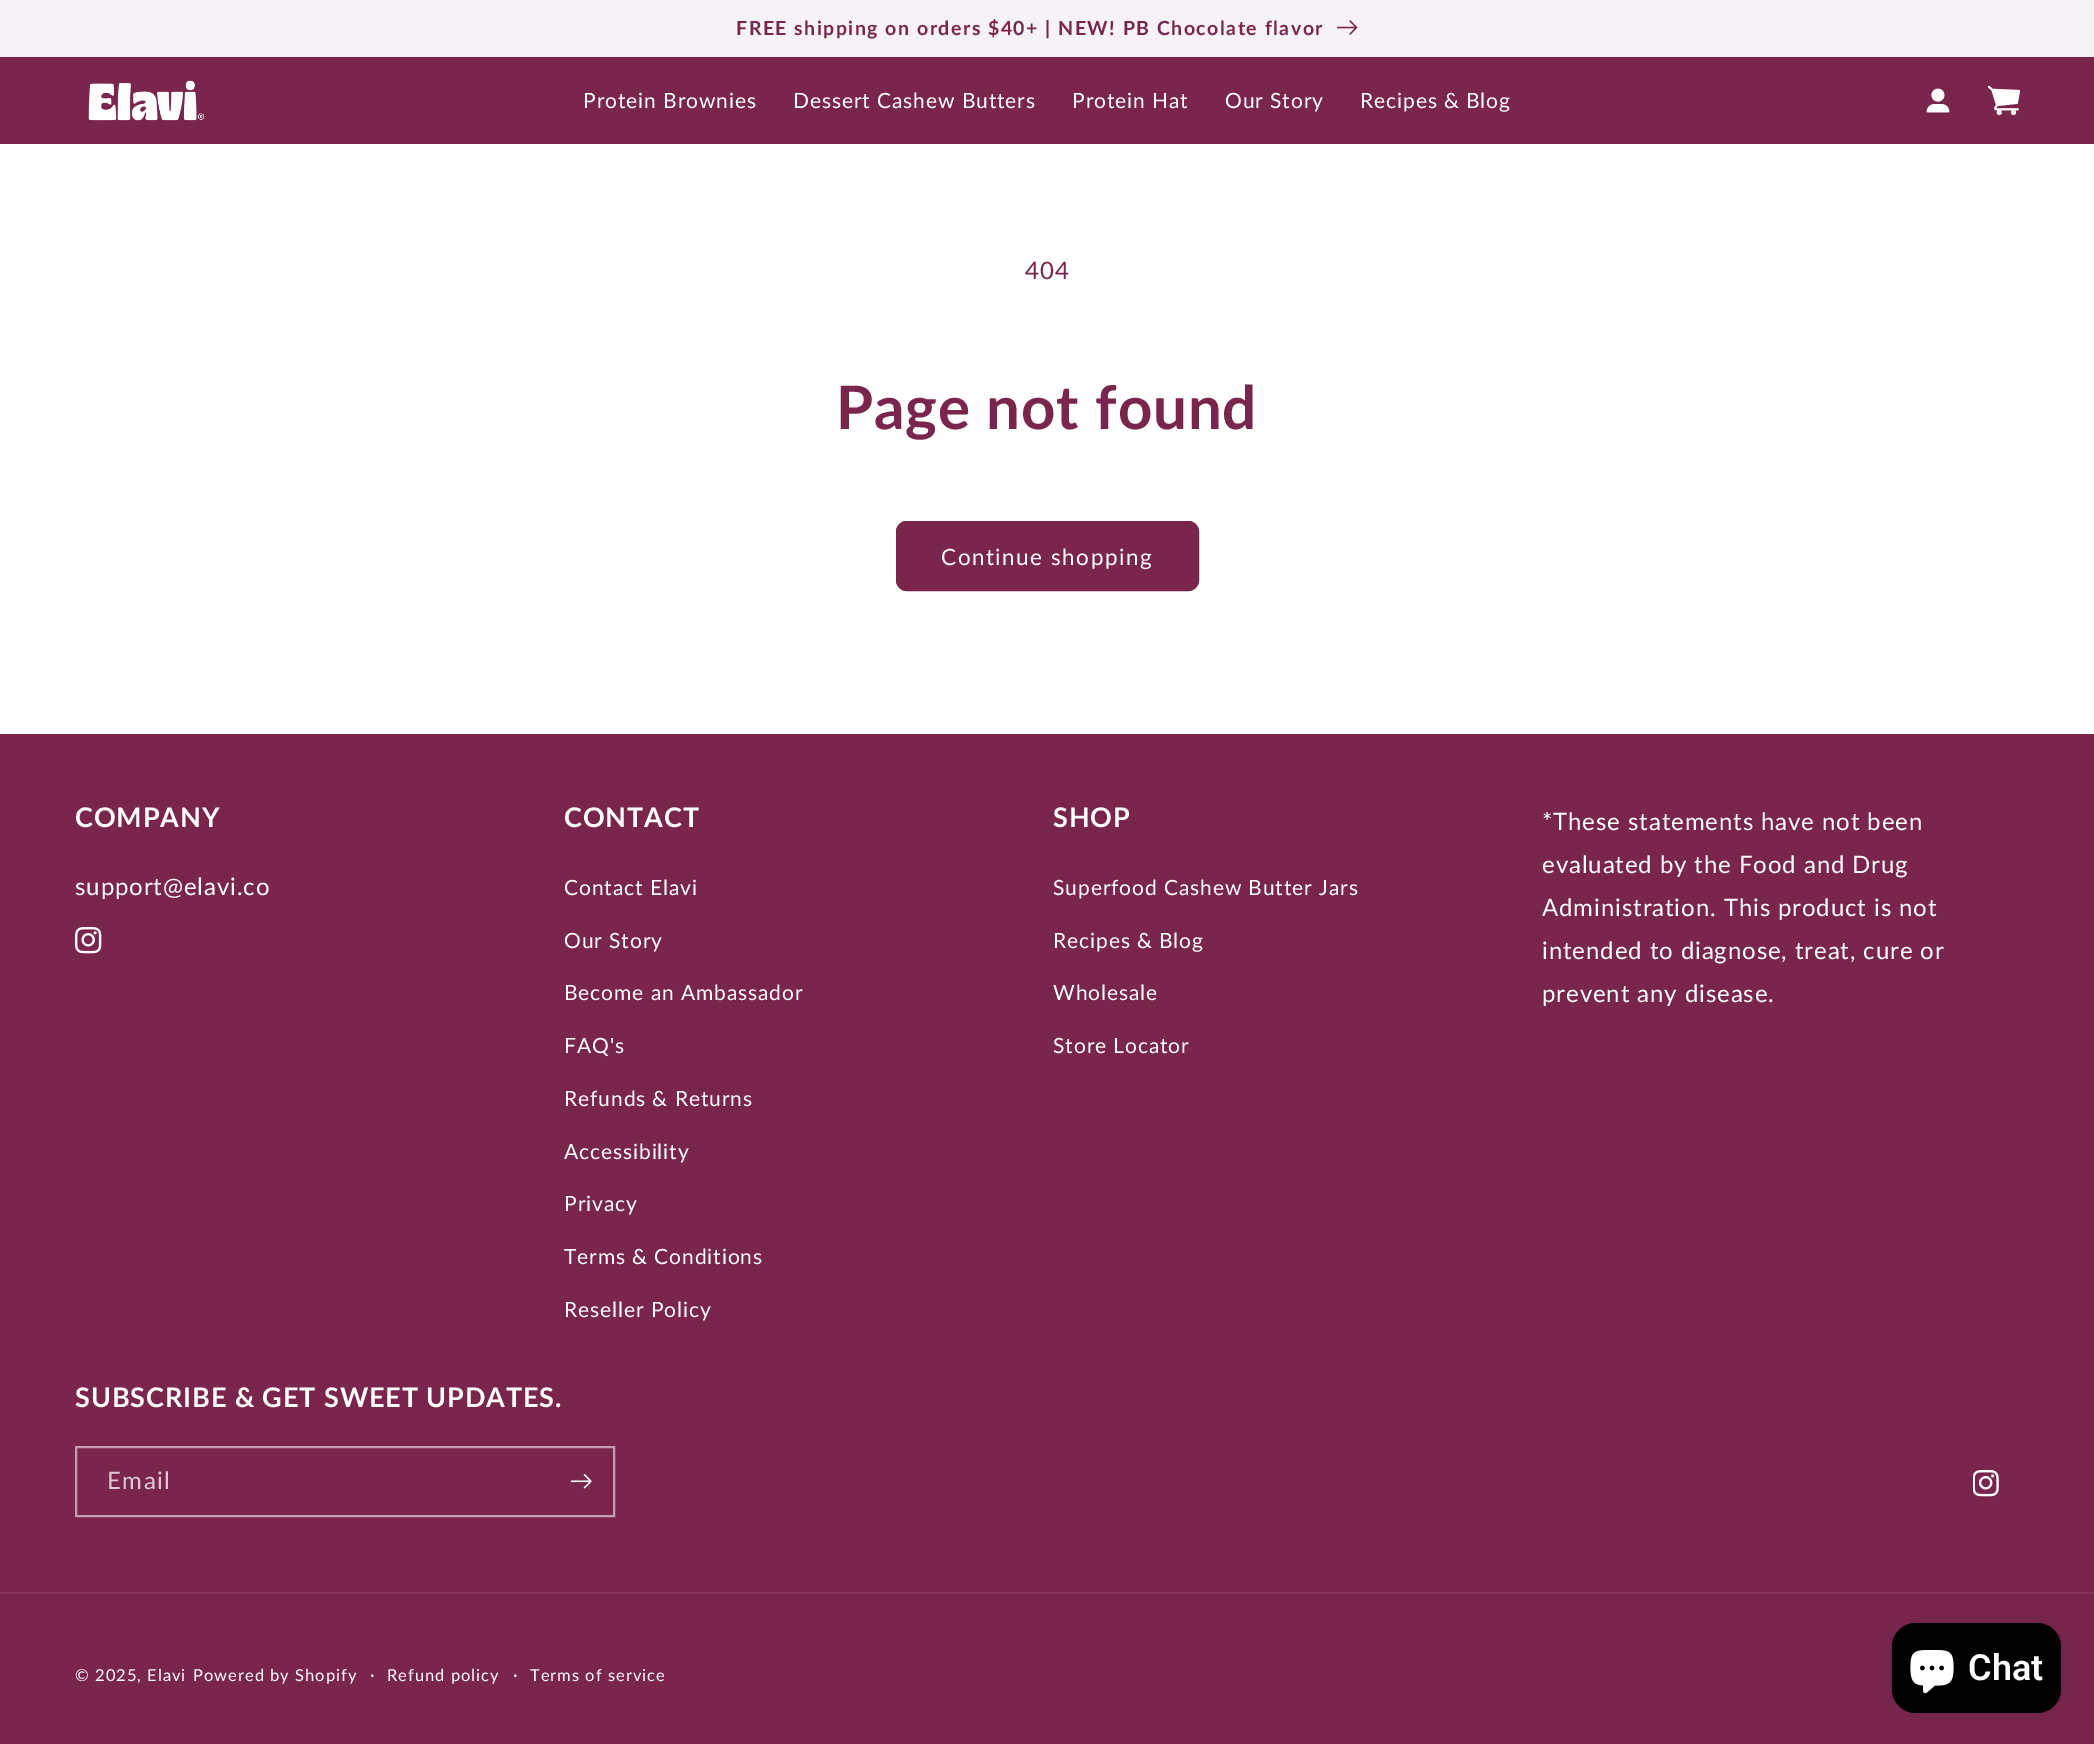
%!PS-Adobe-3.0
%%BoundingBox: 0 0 2094 1744
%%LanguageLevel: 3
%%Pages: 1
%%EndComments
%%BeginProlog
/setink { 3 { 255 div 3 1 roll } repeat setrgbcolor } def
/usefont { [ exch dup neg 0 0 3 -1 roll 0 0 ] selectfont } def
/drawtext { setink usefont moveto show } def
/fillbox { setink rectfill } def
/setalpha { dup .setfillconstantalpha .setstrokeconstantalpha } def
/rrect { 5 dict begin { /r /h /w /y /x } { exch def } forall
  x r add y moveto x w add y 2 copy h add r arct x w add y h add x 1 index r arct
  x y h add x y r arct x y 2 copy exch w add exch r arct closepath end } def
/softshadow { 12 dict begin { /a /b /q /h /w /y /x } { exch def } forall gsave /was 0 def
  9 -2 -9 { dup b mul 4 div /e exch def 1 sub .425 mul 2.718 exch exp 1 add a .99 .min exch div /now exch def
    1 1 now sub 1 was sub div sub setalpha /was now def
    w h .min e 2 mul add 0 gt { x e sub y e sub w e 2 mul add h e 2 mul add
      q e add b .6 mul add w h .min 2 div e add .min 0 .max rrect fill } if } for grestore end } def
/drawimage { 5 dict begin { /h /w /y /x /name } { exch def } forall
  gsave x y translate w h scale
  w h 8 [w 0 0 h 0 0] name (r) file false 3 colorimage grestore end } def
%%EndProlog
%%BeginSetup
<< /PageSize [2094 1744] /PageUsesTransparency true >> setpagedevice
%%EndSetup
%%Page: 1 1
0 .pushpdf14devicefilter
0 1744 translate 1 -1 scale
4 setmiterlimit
0 0 2094 1744 255 255 255 fillbox
0 56 2094 1 244 238 241 fillbox
0 0 2094 56 247 242 245 fillbox
/Lato-Bold 19.5 usefont
121 37 76 setink
736 35 moveto 1.5 0 (FREE shipping on orders $40+ | NEW! PB Chocolate flavor) ashow
(assets/img1.rgb) 1337 20 21 15 drawimage
0 57 2094 87 121 37 76 fillbox
(assets/img2.rgb) 88 80 117 41 drawimage
/Lato-Regular 21 usefont
255 255 255 setink
583 108 moveto 0.9 0 (Protein Brownies) ashow
793 108 moveto 0.9 0 (Dessert Cashew Butters) ashow
1072 108 moveto 0.9 0 (Protein Hat) ashow
1225 108 moveto 0.9 0 (Our Story) ashow
1360 108 moveto 0.9 0 (Recipes & Blog) ashow
(assets/img3.rgb) 1926 88 24 25 drawimage
(assets/img4.rgb) 1987 85 34 31 drawimage
/Lato-Regular 24 usefont
121 37 76 setink
1025 279 moveto 0.9 0 (404) ashow
/Lato-Bold 60 usefont
836 429 moveto 0.9 0 (Page not found) ashow
896 521 303 70 11 rrect fill
2 setlinewidth
897 522 301 68 10 rrect stroke
/Lato-Regular 22.5 usefont
255 255 255 setink
941 565 moveto 1.5 0 (Continue shopping) ashow
0 734 2094 1010 121 37 76 fillbox
/Lato-Bold 27 usefont
255 255 255 setink
75 827 moveto 0.9 0 (COMPANY) ashow
/Lato-Regular 24 usefont
75 895 moveto 0.9 0 (support@elavi.co) ashow
(assets/img5.rgb) 75 927 27 27 drawimage
/Lato-Bold 27 usefont
564 827 moveto 0.9 0 (CONTACT) ashow
/Lato-Regular 21 usefont
564 895 moveto 0.9 0 (Contact Elavi) ashow
564 948 moveto 0.9 0 (Our Story) ashow
564 1000 moveto 0.9 0 (Become an Ambassador) ashow
564 1053 moveto 0.9 0 (FAQ's) ashow
564 1106 moveto 0.9 0 (Refunds & Returns) ashow
564 1159 moveto 0.9 0 (Accessibility) ashow
564 1211 moveto 0.9 0 (Privacy) ashow
564 1264 moveto 0.9 0 (Terms & Conditions) ashow
564 1317 moveto 0.9 0 (Reseller Policy) ashow
/Lato-Bold 27 usefont
1053 827 moveto 0.9 0 (SHOP) ashow
/Lato-Regular 21 usefont
1053 895 moveto 0.9 0 (Superfood Cashew Butter Jars) ashow
1053 948 moveto 0.9 0 (Recipes & Blog) ashow
1053 1000 moveto 0.9 0 (Wholesale) ashow
1053 1053 moveto 0.9 0 (Store Locator) ashow
/Lato-Regular 24 usefont
1542 830 moveto 0.9 0 (*These statements have not been) ashow
1542 873 moveto 0.9 0 (evaluated by the Food and Drug) ashow
1542 916 moveto 0.9 0 (Administration. This product is not) ashow
1542 959 moveto 0.9 0 (intended to diagnose, treat, cure or) ashow
1542 1002 moveto 0.9 0 (prevent any disease.) ashow
/Lato-Bold 27 usefont
75 1407 moveto 0.9 0 (SUBSCRIBE & GET SWEET UPDATES.) ashow
195 157 174 setink
76 1447 538 69 rectstroke
/Lato-Regular 24 usefont
222 201 210 setink
107 1489 moveto 1.5 0 (Email) ashow
(assets/img6.rgb) 570 1474 22 15 drawimage
(assets/img7.rgb) 1973 1470 26 27 drawimage
0 1592 2094 2 132 54 90 fillbox
/Lato-Regular 16.5 usefont
255 255 255 setink
75 1681 moveto 1 0 (© 2025, Elavi) ashow
193 1681 moveto 1 0 (Powered by Shopify) ashow
/Lato-Regular 18 usefont
370 1681 moveto 1 0 (·) ashow
/Lato-Regular 16.5 usefont
387 1681 moveto 1 0 (Refund policy) ashow
/Lato-Regular 18 usefont
513 1681 moveto 1 0 (·) ashow
/Lato-Regular 16.5 usefont
530 1681 moveto 1 0 (Terms of service) ashow
0 0 0 setink
1892 1623 169 90 24 4 0.15 softshadow
1892 1623 169 90 24 rrect fill
(assets/img8.rgb) 1910 1650 44 44 drawimage
(Chat) 1968 1680 /Roboto-SemiBold 36 255 255 255 drawtext
.poppdf14devicefilter showpage
%%EOF
